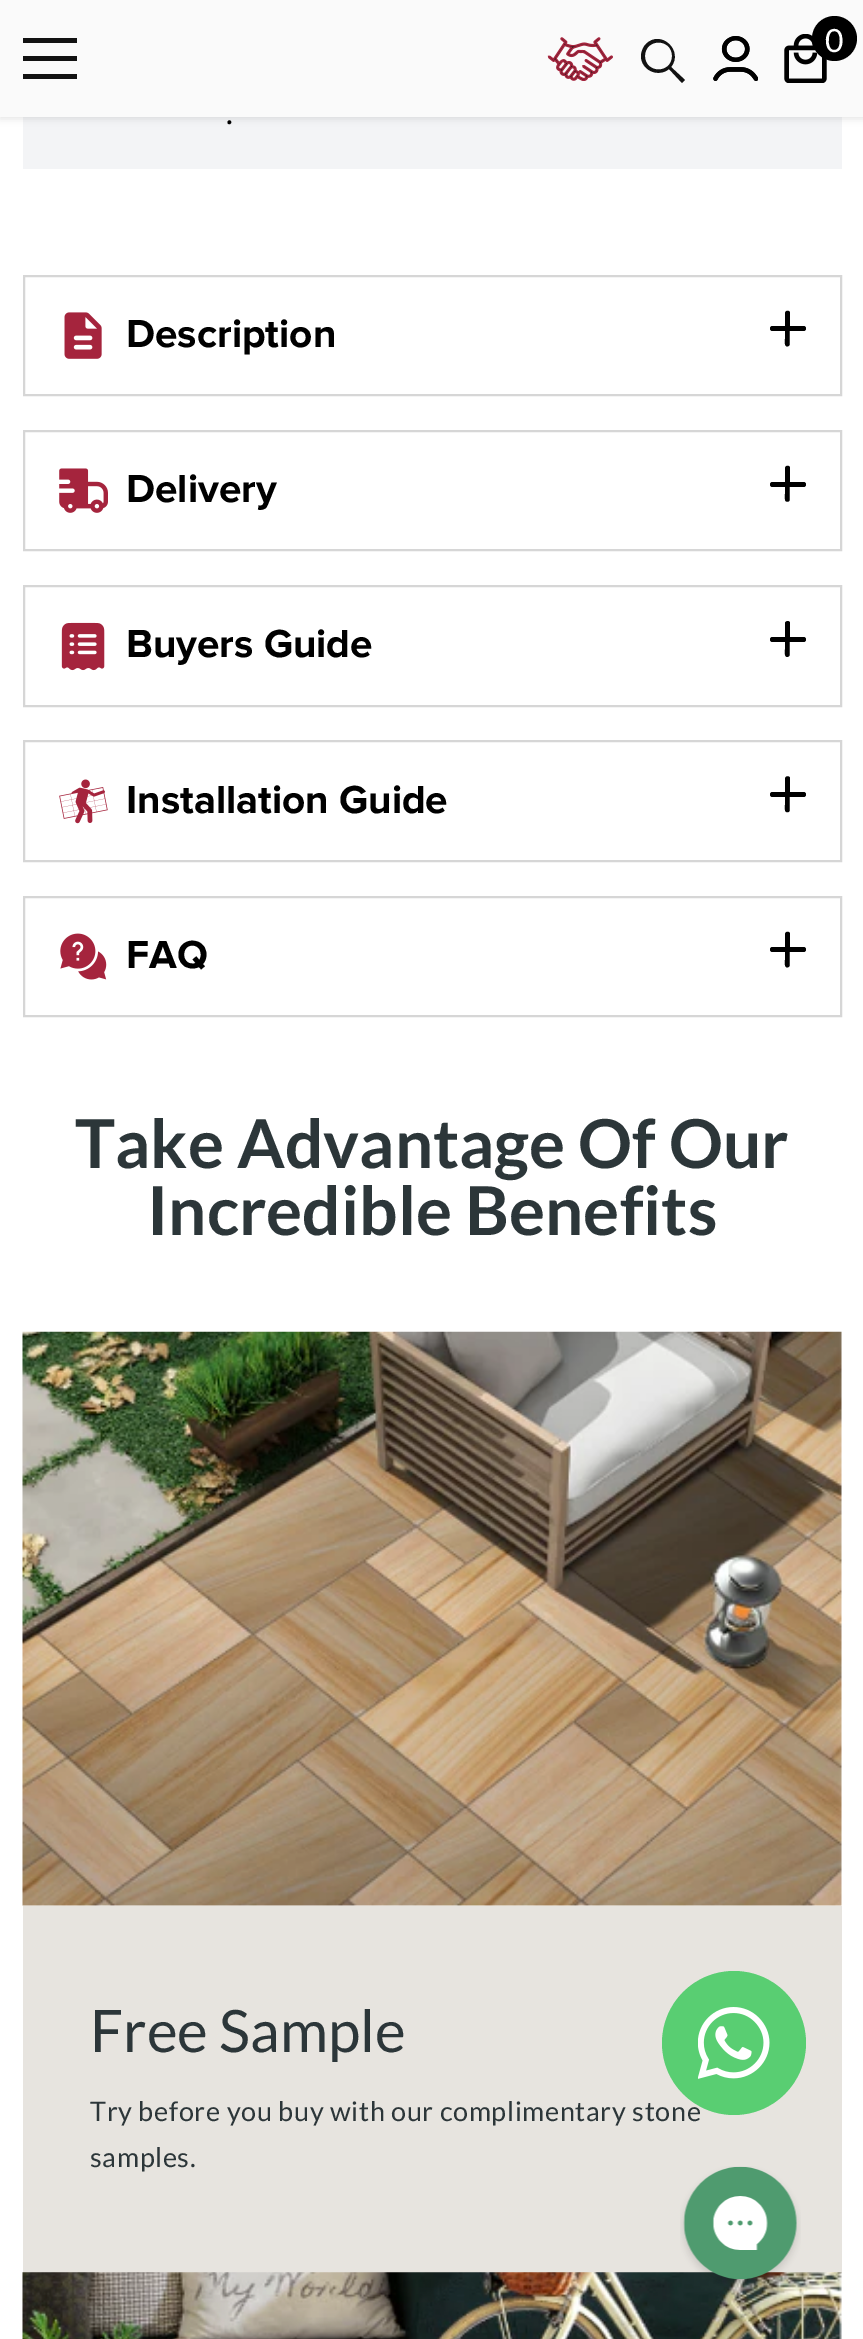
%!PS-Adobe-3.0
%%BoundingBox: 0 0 863 2339
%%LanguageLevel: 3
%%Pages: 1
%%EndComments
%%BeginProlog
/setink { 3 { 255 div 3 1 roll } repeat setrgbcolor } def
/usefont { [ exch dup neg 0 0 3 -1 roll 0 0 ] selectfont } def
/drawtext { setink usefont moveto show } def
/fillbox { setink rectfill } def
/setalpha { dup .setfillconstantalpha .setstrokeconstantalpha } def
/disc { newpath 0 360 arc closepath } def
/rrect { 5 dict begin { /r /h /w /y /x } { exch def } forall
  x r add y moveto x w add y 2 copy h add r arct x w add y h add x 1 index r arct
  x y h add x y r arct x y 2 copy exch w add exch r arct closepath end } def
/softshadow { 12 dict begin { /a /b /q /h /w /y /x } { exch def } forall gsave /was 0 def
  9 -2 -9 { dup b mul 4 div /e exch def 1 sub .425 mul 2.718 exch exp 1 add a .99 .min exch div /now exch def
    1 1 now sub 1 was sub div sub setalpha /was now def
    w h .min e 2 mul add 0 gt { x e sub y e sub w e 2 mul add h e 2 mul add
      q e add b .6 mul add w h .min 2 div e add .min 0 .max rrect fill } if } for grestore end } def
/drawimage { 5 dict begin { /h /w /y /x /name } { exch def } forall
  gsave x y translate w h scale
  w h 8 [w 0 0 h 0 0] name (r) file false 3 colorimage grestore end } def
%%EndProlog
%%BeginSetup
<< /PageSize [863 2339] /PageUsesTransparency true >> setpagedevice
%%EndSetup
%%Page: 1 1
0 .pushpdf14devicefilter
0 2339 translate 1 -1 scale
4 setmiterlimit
0 0 863 2339 255 255 255 fillbox
23 117 819 52 243 244 246 fillbox
0 0 0 setink
0 2 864 117 0 3.5 0.1 softshadow
0 0 863 117 250 250 250 fillbox
23 56 54 5 18 18 18 fillbox
23 38 54 5 18 18 18 fillbox
23 74 54 5 18 18 18 fillbox
(assets/img1.rgb) 547 37 66 44 drawimage
641 56 moveto 641 70 658 78 669 69 curveto 682 83 lineto 685 80 lineto 671 67 lineto 684 51 661 29 646 44 curveto 643 47 641 52 641 56 curveto closepath 645 56 moveto 645 38 672 38 672 56 curveto 672 74 645 74 645 56 curveto closepath fill
(assets/img2.rgb) 713 36 45 45 drawimage
(assets/img3.rgb) 784 34 43 49 drawimage
0 0 0 setink
834.5 38.5 22.5 disc fill
(0) 825 52 /Lato-Regular 32 255 255 255 drawtext
(.) 226 124 /Lato-Regular 32 0 0 0 drawtext
214 214 214 setink
2 setlinewidth
24 276 817 119 rectstroke
(assets/img4.rgb) 64 312 38 47 drawimage
(Description) 126 347 /ProximaNova-Bold 40.5 0 0 0 drawtext
790 313 moveto 789.5 345 lineto 789 346.5 786.5 347 785.5 345.5 curveto 784.5 344 785 339 785 339 curveto 785 313 lineto 785.5 310 790 310 790 313 curveto closepath fill
770 326 36 5 2.5 rrect fill
214 214 214 setink
24 431 817 119 rectstroke
(assets/img5.rgb) 59 468 49 45 drawimage
(Delivery) 126 502 /ProximaNova-Bold 40.5 0 0 0 drawtext
790 468 moveto 789.5 500.5 lineto 789 502 786.5 502 785.5 501 curveto 784.5 499 785 494.5 785 494 curveto 785 468 lineto 785.5 465 790 465 790 468 curveto closepath fill
770 482 36 5 2.5 rrect fill
214 214 214 setink
24 586 817 120 rectstroke
(assets/img6.rgb) 61 622 44 49 drawimage
(Buyers Guide) 126 657 /ProximaNova-Bold 40.5 0 0 0 drawtext
790 623 moveto 789.5 655.5 lineto 789 657 786.5 657.5 785.5 656 curveto 784.5 654.5 785 649.5 785 649.5 curveto 785 623 lineto 785.5 620.5 790 620.5 790 623 curveto closepath fill
770 637 36 5 2.5 rrect fill
214 214 214 setink
24 741 817 120 rectstroke
(assets/img7.rgb) 59 779 49 45 drawimage
(Installation Guide) 126 813 /ProximaNova-Bold 40.5 0 0 0 drawtext
790 778.5 moveto 789.5 811 lineto 789 812.5 786.5 812.5 785.5 811.5 curveto 784.5 809.5 785 805 785 805 curveto 785 778.5 lineto 785.5 775.5 790 775.5 790 778.5 curveto closepath fill
770 792 36 5 2.5 rrect fill
214 214 214 setink
24 897 817 119 rectstroke
(assets/img8.rgb) 60 933 47 47 drawimage
(FAQ) 126 968 /ProximaNova-Bold 40.5 0 0 0 drawtext
790 934 moveto 789.5 966 lineto 789 967.5 786.5 968 785.5 966.5 curveto 784.5 965 785 960 785 960 curveto 785 934 lineto 785.5 931 790 931 790 934 curveto closepath fill
770 947 36 5 2.5 rrect fill
(Take Advantage Of Our) 75 1168 /Lato-Bold 67.5 44 54 57 drawtext
(Incredible Benefits) 147 1235 /Lato-Bold 67.5 44 54 57 drawtext
(assets/img9.rgb) 22 1331 820 575 drawimage
23 1906 819 367 231 228 223 fillbox
(Free Sample) 90 2052 /Lato-Regular 58.5 44 54 57 drawtext
/Lato-Regular 27 usefont
90 2121 moveto 0.65 0 (Try before you buy with our complimentary stone) ashow
90 2167 moveto 0.65 0 (samples.) ashow
(assets/img10.rgb) 22 2272 820 67 drawimage
89 206 114 setink
734 2043 72 disc fill
(assets/img11.rgb) 698 2007 72 72 drawimage
(assets/img12.rgb) 680 2166 121 122 drawimage
.poppdf14devicefilter showpage
%%EOF
